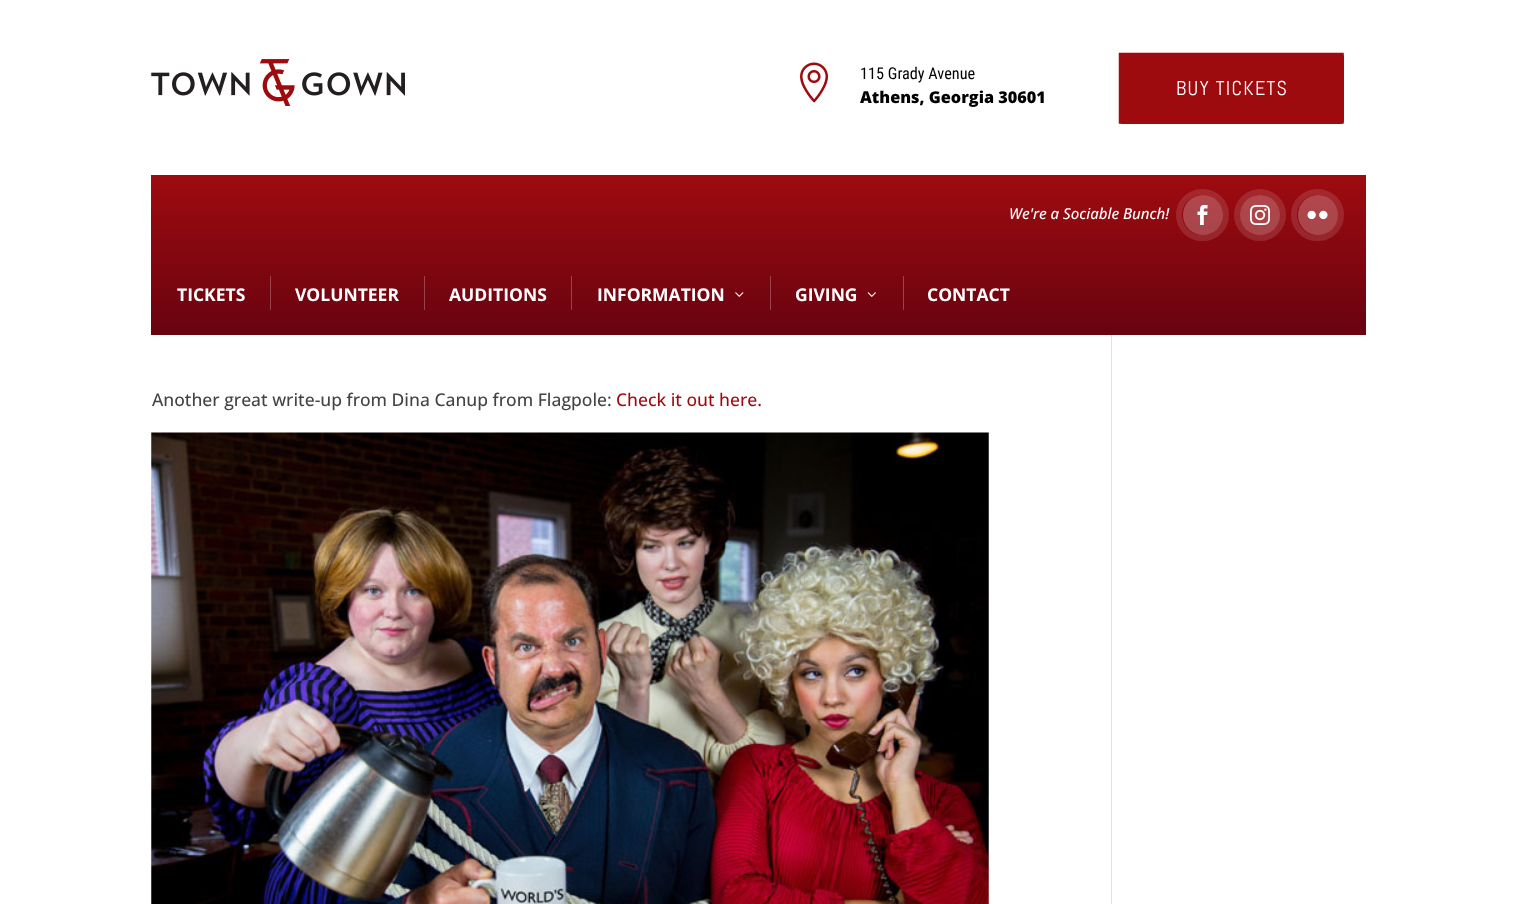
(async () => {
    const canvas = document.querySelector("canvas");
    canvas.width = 1517;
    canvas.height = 904;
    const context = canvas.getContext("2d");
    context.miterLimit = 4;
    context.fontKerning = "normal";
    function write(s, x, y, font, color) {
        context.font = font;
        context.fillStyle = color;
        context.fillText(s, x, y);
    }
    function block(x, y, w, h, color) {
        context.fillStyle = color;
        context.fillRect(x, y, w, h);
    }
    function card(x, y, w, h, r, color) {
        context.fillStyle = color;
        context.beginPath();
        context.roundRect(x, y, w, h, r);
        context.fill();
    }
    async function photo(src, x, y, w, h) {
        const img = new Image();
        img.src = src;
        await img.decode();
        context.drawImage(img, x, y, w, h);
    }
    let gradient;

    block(0, 0, 1517, 904, "rgb(255, 255, 255)");
    await photo("media/1.png", 151, 59, 254, 47);
    await photo("media/2.png", 800, 62, 29, 41);
    write("115 Grady Avenue", 860, 79, "16.25px Roboto Condensed", "rgb(0, 0, 0)");
    write("Athens, Georgia 30601", 860, 103, "800 16.25px Open Sans", "rgb(0, 0, 0)");
    card(1119, 53, 225, 71, 4, "rgb(158, 11, 15)");
    context.beginPath();
    context.moveTo(1125, 59);
    context.lineTo(1337.5, 59);
    context.lineTo(1337.5, 117.5);
    context.lineTo(1125, 117.5);
    context.closePath();
    context.strokeStyle = "rgb(158, 11, 15)";
    context.lineWidth = 12.5;
    context.stroke();
    context.letterSpacing = "1.25px";
    write("BUY TICKETS", 1176, 95, "20px Abel", "rgb(255, 255, 255)");
    gradient = context.createLinearGradient(759, 175, 759, 335);
    gradient.addColorStop(0, "rgb(158, 11, 15)");
    gradient.addColorStop(1, "rgb(104, 3, 16)");
    context.fillStyle = gradient;
    context.fillRect(151, 175, 1215, 160);
    gradient = context.createLinearGradient(759, 175, 759, 335);
    gradient.addColorStop(0, "rgb(182, 72, 75)");
    gradient.addColorStop(1, "rgb(142, 66, 76)");
    context.fillStyle = gradient;
    context.fillRect(903, 276, 1, 34);
    context.fillRect(770, 276, 1, 34);
    context.fillRect(571, 276, 1, 34);
    context.letterSpacing = "0px";
    write("We're a Sociable Bunch!", 1009, 219, "italic 500 15px Open Sans", "rgb(255, 255, 255)");
    context.beginPath();
    context.roundRect(1179, 192, 47, 46, 23);
    context.strokeStyle = "rgba(255, 255, 255, 0.12)";
    context.lineWidth = 6;
    context.stroke();
    context.fillStyle = "rgba(255, 255, 255, 0.25)";
    context.beginPath();
    context.arc(1203, 215, 20, 0, Math.PI * 2);
    context.fill();
    await photo("media/3.png", 1197, 205, 11, 20);
    context.beginPath();
    context.arc(1260, 215, 23, 0, Math.PI * 2);
    context.stroke();
    context.beginPath();
    context.arc(1260, 215, 20, 0, Math.PI * 2);
    context.fill();
    await photo("media/4.png", 1250, 205, 20, 20);
    context.beginPath();
    context.roundRect(1294, 192, 47, 46, 23);
    context.stroke();
    context.beginPath();
    context.arc(1318, 215, 20, 0, Math.PI * 2);
    context.fill();
    await photo("media/5.png", 1307, 210, 21, 10);
    write("TICKETS", 177, 301, "bold 17.5px Open Sans", "rgb(255, 255, 255)");
    block(270, 276, 1, 34, "rgba(255, 255, 255, 0.25)");
    write("VOLUNTEER", 295, 301, "bold 17.5px Open Sans", "rgb(255, 255, 255)");
    block(424, 276, 1, 34, "rgba(255, 255, 255, 0.25)");
    write("AUDITIONS", 449, 301, "bold 17.5px Open Sans", "rgb(255, 255, 255)");
    write("INFORMATION", 597, 301, "bold 17.5px Open Sans", "rgb(255, 255, 255)");
    await photo("media/6.png", 735, 292, 9, 5);
    write("GIVING", 795, 301, "bold 17.5px Open Sans", "rgb(255, 255, 255)");
    await photo("media/7.png", 867, 292, 9, 5);
    write("CONTACT", 927, 301, "bold 17.5px Open Sans", "rgb(255, 255, 255)");
    write("Another great write-up from Dina Canup from Flagpole:", 152, 406, "500 17.5px Open Sans", "rgb(68, 68, 68)");
    write("Check it out here.", 616, 406, "500 17.5px Open Sans", "rgb(158, 10, 15)");
    await photo("media/8.png", 151, 432, 838, 472);
    block(1111, 335, 1, 569, "rgb(226, 226, 226)");
})();
